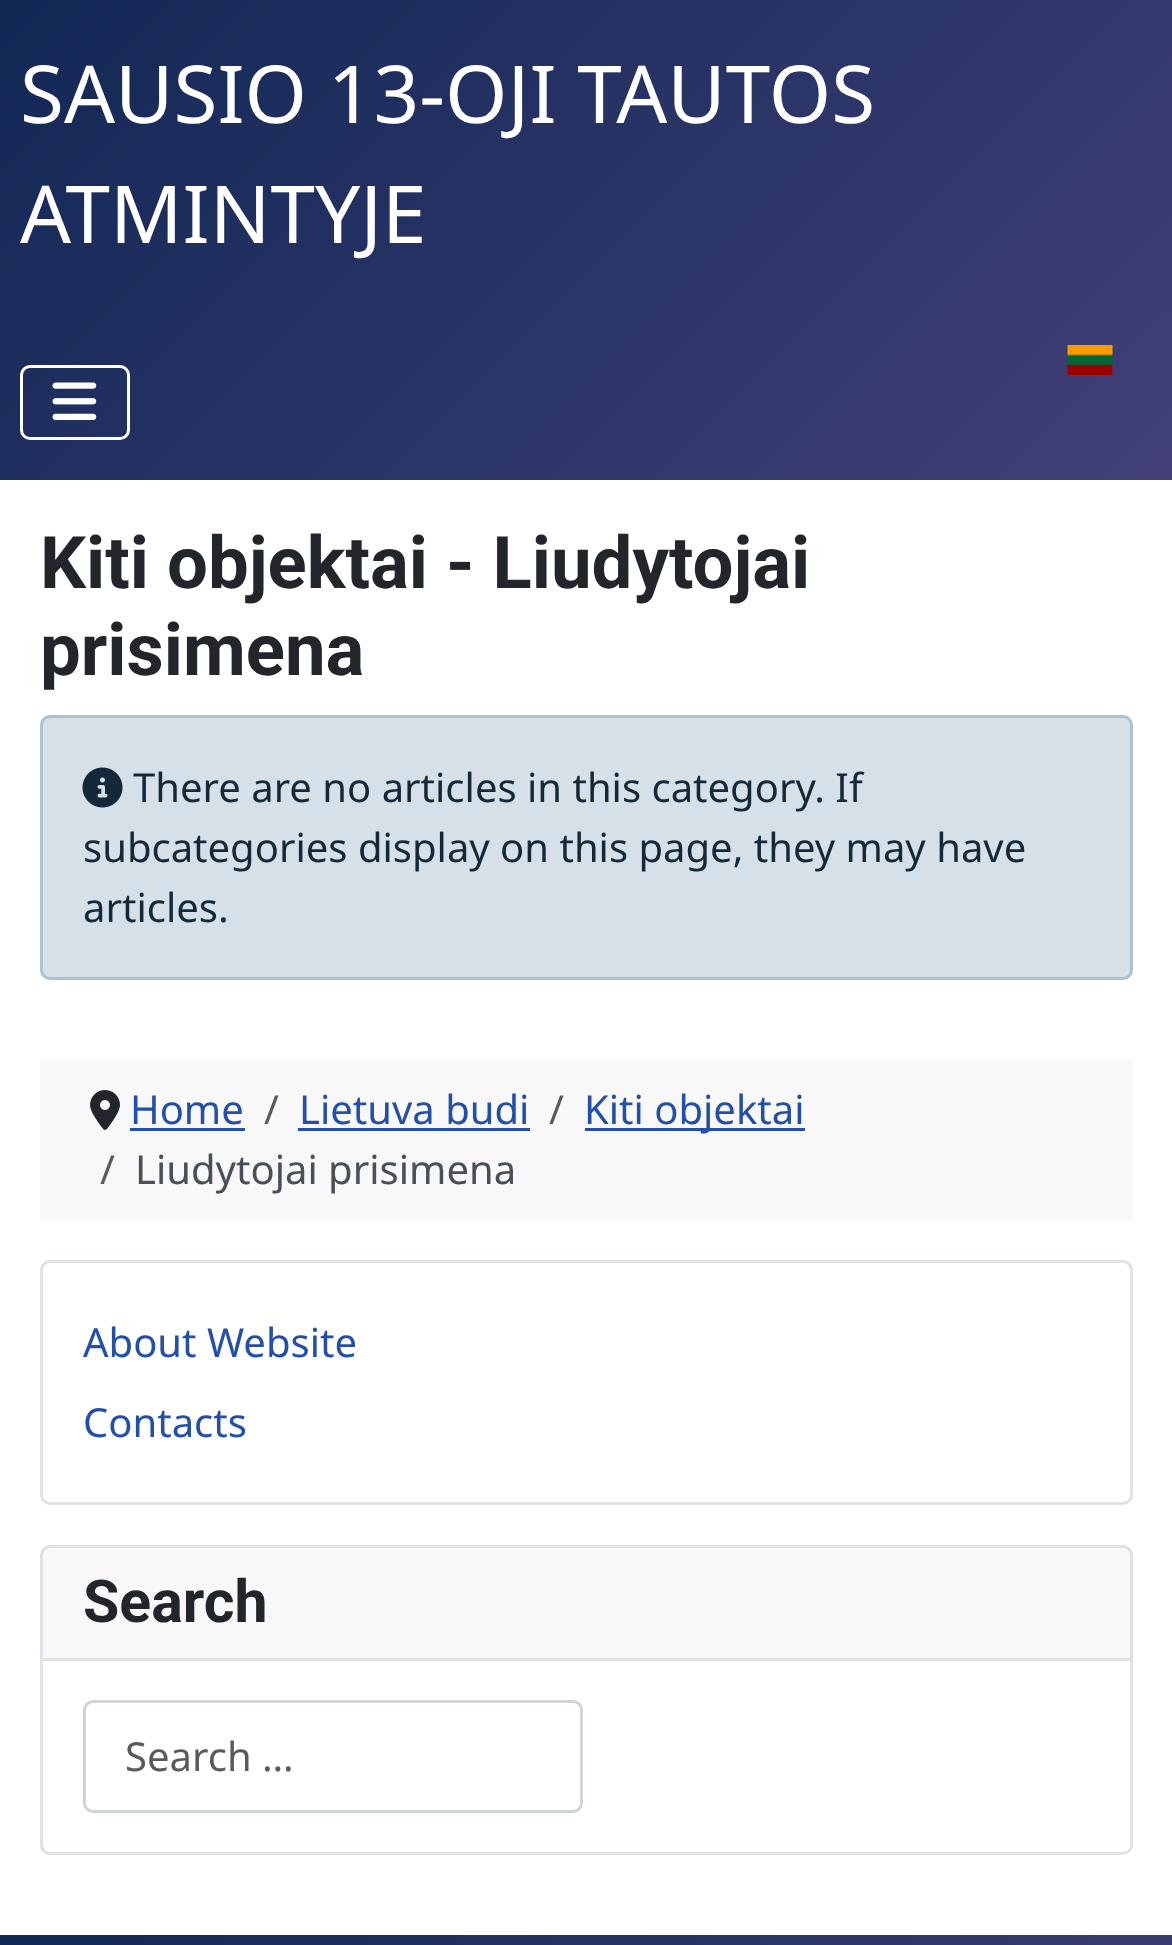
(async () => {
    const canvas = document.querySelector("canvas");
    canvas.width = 1172;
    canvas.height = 1945;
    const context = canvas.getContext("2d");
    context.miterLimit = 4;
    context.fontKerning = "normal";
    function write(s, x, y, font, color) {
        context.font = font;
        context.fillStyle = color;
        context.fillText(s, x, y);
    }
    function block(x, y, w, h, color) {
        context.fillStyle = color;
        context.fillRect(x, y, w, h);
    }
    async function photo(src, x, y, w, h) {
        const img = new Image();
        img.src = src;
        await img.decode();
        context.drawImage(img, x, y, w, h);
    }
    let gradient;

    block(0, 0, 1172, 1945, "rgb(255, 255, 255)");
    gradient = context.createLinearGradient(173, -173, 999, 653);
    gradient.addColorStop(0, "rgb(17, 40, 85)");
    gradient.addColorStop(1, "rgb(66, 64, 119)");
    context.fillStyle = gradient;
    context.fillRect(0, 0, 1172, 480);
    write("SAUSIO 13-OJI TAUTOS", 20, 123, "80px Noto Sans", "rgb(255, 255, 255)");
    write("ATMINTYJE", 20, 243, "80px Noto Sans", "rgb(255, 255, 255)");
    await photo("media/1.png", 1067, 345, 46, 30);
    context.beginPath();
    context.roundRect(21.5, 366.5, 107, 72, 8.5);
    context.strokeStyle = "rgb(255, 255, 255)";
    context.lineWidth = 3;
    context.stroke();
    await photo("media/2.png", 52, 382, 45, 38);
    write("Kiti objektai - Liudytojai", 40, 588, "bold 72.5px Roboto", "rgb(34, 38, 42)");
    write("prisimena", 40, 675, "bold 72.5px Roboto", "rgb(34, 38, 42)");
    context.fillStyle = "rgb(214, 224, 232)";
    context.beginPath();
    context.roundRect(41.5, 716.5, 1090, 262, 8.5);
    context.fill();
    context.strokeStyle = "rgb(172, 193, 209)";
    context.stroke();
    await photo("media/3.png", 82, 767, 41, 41);
    write("There are no articles in this category. If", 133, 802, "40px Noto Sans", "rgb(19, 40, 56)");
    write("subcategories display on this page, they may have", 83, 862, "40px Noto Sans", "rgb(19, 40, 56)");
    write("articles.", 83, 922, "40px Noto Sans", "rgb(19, 40, 56)");
    block(40, 1060, 1093, 160, "rgb(248, 248, 248)");
    await photo("media/4.png", 90, 1090, 30, 40);
    write("Home", 130, 1124, "40px Noto Sans", "rgb(34, 79, 170)");
    block(130, 1128, 115, 3, "rgb(34, 79, 170)");
    write("/", 264, 1124, "40px Noto Sans", "rgb(88, 91, 94)");
    write("Lietuva budi", 299, 1124, "40px Noto Sans", "rgb(34, 79, 170)");
    block(298, 1128, 232, 3, "rgb(34, 79, 170)");
    write("/", 549, 1124, "40px Noto Sans", "rgb(88, 91, 94)");
    block(585, 1128, 220, 3, "rgb(34, 79, 170)");
    write("Kiti objektai", 584, 1124, "40px Noto Sans", "rgb(34, 79, 170)");
    write("/", 100, 1184, "40px Noto Sans", "rgb(88, 91, 94)");
    write("Liudytojai prisimena", 135, 1184, "40px Noto Sans", "rgb(72, 79, 86)");
    context.beginPath();
    context.roundRect(41.5, 1261.5, 1090, 242, 8.5);
    context.strokeStyle = "rgb(223, 227, 231)";
    context.stroke();
    write("About Website", 83, 1357, "40px Noto Sans", "rgb(34, 79, 170)");
    write("Contacts", 83, 1437, "40px Noto Sans", "rgb(34, 79, 170)");
    context.beginPath();
    context.roundRect(41.5, 1546.5, 1090, 307, 8.5);
    context.stroke();
    block(43, 1548, 1087, 110, "rgba(34, 38, 42, 0.03)");
    block(43, 1658, 1087, 3, "rgb(223, 227, 231)");
    write("Search", 83, 1622, "bold 59px Roboto", "rgb(34, 38, 42)");
    context.beginPath();
    context.roundRect(84.5, 1701.5, 497, 110, 8.5);
    context.strokeStyle = "rgb(206, 212, 218)";
    context.stroke();
    write("Search …", 125, 1771, "40px Noto Sans", "rgb(88, 91, 94)");
    gradient = context.createLinearGradient(218, 1717, 954, 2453);
    gradient.addColorStop(0, "rgb(17, 40, 85)");
    gradient.addColorStop(1, "rgb(66, 64, 119)");
    context.fillStyle = gradient;
    context.fillRect(0, 1935, 1172, 10);
})();
